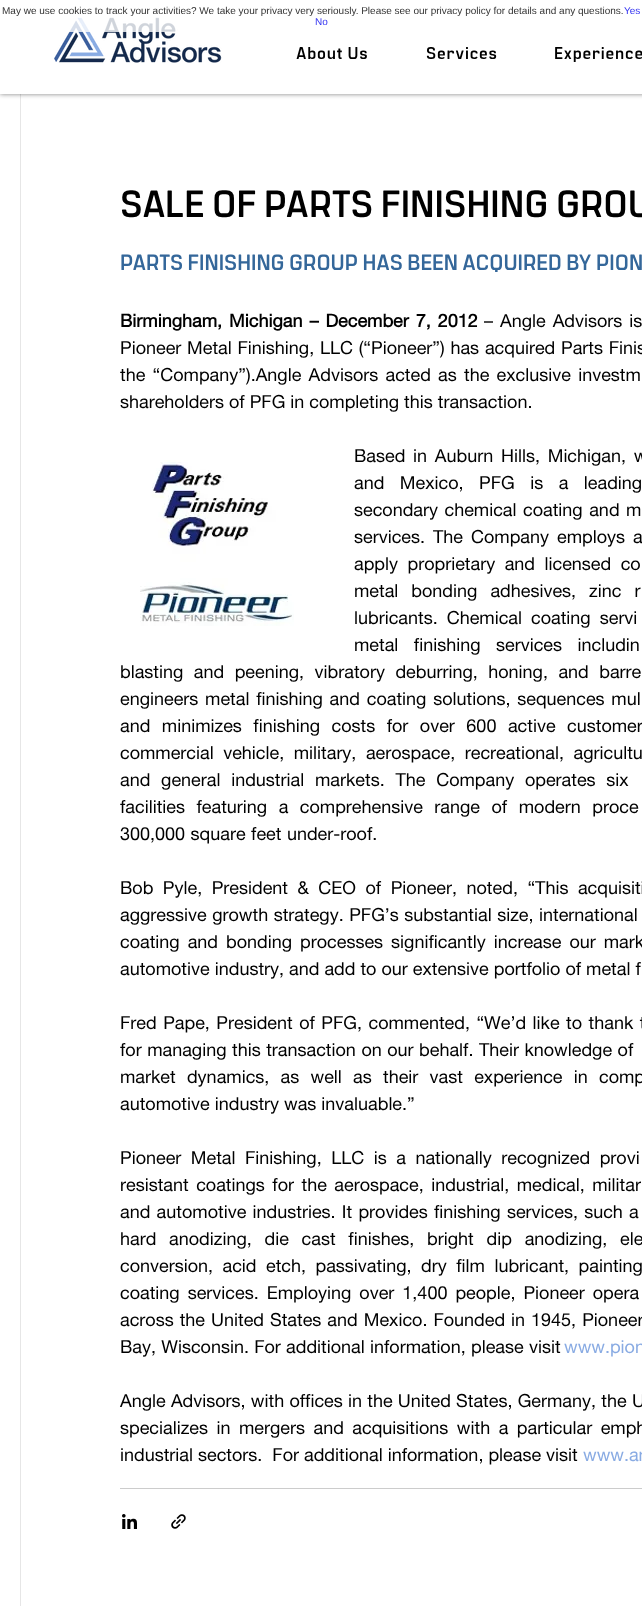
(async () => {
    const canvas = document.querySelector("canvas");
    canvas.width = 642;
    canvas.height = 1606;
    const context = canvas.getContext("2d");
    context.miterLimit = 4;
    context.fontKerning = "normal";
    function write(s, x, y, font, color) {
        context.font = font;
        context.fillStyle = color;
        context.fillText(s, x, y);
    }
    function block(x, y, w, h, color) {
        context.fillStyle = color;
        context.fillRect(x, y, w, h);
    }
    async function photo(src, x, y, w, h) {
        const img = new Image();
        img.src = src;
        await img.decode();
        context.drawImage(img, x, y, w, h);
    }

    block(0, 0, 642, 1606, "rgb(255, 255, 255)");
    context.strokeStyle = "rgb(230, 230, 230)";
    context.strokeRect(20.5, 91.5, 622, 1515);
    context.fillStyle = "rgba(0, 0, 0, 0.5)";
    context.filter = "blur(2.5px)";
    context.beginPath();
    context.rect(0, 0, 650, 94);
    context.fill();
    context.filter = "none";
    block(0, 0, 642, 94, "rgb(255, 255, 255)");
    await photo("media/1.png", 54, 17, 168, 46);
    block(67, 17, 110, 15, "rgba(255, 255, 255, 0.8)");
    write("May we use cookies to track your activities? We take your privacy very seriously. Please see our privacy policy for details and any questions.", 2, 14, "10px Liberation Sans", "rgb(51, 51, 51)");
    write("Yes", 624, 14, "10px Liberation Sans", "rgb(51, 51, 241)");
    write("No", 315, 25, "10px Liberation Sans", "rgb(51, 51, 241)");
    context.letterSpacing = "0.75px";
    write("About Us", 296, 59, "bold 17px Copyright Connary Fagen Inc", "rgb(0, 0, 0)");
    write("Services", 426, 59, "bold 17px Copyright Connary Fagen Inc", "rgb(0, 0, 0)");
    write("Experience", 554, 59, "bold 17px Copyright Connary Fagen Inc", "rgb(0, 0, 0)");
    context.letterSpacing = "0px";
    write("SALE OF PARTS FINISHING GROU", 120, 217, "bold 38px Copyright Connary Fagen Inc", "rgb(0, 0, 0)");
    write("PARTS FINISHING GROUP HAS BEEN ACQUIRED BY PION", 120, 270, "bold 22px Copyright Connary Fagen Inc", "rgb(52, 103, 154)");
    context.wordSpacing = "2px";
    write("Birmingham, Michigan – December 7, 2012", 120, 327, "bold 18px Helvetica Neue", "rgb(0, 0, 0)");
    write("– Angle Advisors is", 484, 327, "18px Helvetica Neue", "rgb(0, 0, 0)");
    context.wordSpacing = "0.75px";
    write("Pioneer Metal Finishing, LLC (“Pioneer”) has acquired Parts Finis", 120, 354, "18px Helvetica Neue", "rgb(0, 0, 0)");
    context.wordSpacing = "2.25px";
    write("the “Company”).Angle Advisors acted as the exclusive investm", 120, 381, "18px Helvetica Neue", "rgb(0, 0, 0)");
    context.wordSpacing = "0px";
    write("shareholders of PFG in completing this transaction.", 120, 408, "18px Helvetica Neue", "rgb(0, 0, 0)");
    context.wordSpacing = "2.75px";
    write("Based in Auburn Hills, Michigan, w", 354, 462, "18px Helvetica Neue", "rgb(0, 0, 0)");
    context.wordSpacing = "10.5px";
    write("and Mexico, PFG is a leading", 354, 489, "18px Helvetica Neue", "rgb(0, 0, 0)");
    context.wordSpacing = "1.5px";
    write("secondary chemical coating and m", 354, 516, "18px Helvetica Neue", "rgb(0, 0, 0)");
    context.wordSpacing = "3px";
    write("services. The Company employs a", 354, 543, "18px Helvetica Neue", "rgb(0, 0, 0)");
    context.wordSpacing = "4.5px";
    write("apply proprietary and licensed co", 354, 570, "18px Helvetica Neue", "rgb(0, 0, 0)");
    context.wordSpacing = "8px";
    write("metal bonding adhesives, zinc r", 354, 597, "18px Helvetica Neue", "rgb(0, 0, 0)");
    context.wordSpacing = "4px";
    write("lubricants. Chemical coating servi", 354, 624, "18px Helvetica Neue", "rgb(0, 0, 0)");
    context.wordSpacing = "10.5px";
    write("metal finishing services includin", 354, 651, "18px Helvetica Neue", "rgb(0, 0, 0)");
    context.wordSpacing = "5.5px";
    write("blasting and peening, vibratory deburring, honing, and barre", 120, 678, "18px Helvetica Neue", "rgb(0, 0, 0)");
    context.wordSpacing = "1.75px";
    write("engineers metal finishing and coating solutions, sequences mul", 120, 705, "18px Helvetica Neue", "rgb(0, 0, 0)");
    context.wordSpacing = "6.5px";
    write("and minimizes finishing costs for over 600 active customer", 120, 732, "18px Helvetica Neue", "rgb(0, 0, 0)");
    context.wordSpacing = "4.5px";
    write("commercial vehicle, military, aerospace, recreational, agricultu", 120, 759, "18px Helvetica Neue", "rgb(0, 0, 0)");
    context.wordSpacing = "5.75px";
    write("and general industrial markets. The Company operates six", 120, 786, "18px Helvetica Neue", "rgb(0, 0, 0)");
    context.wordSpacing = "6.5px";
    write("facilities featuring a comprehensive range of modern proce", 120, 813, "18px Helvetica Neue", "rgb(0, 0, 0)");
    context.wordSpacing = "0.5px";
    write("300,000 square feet under-roof.", 120, 840, "18px Helvetica Neue", "rgb(0, 0, 0)");
    await photo("media/2.png", 140, 460, 154, 166);
    context.wordSpacing = "4.5px";
    write("Bob Pyle, President & CEO of Pioneer, noted, “This acquisiti", 120, 894, "18px Helvetica Neue", "rgb(0, 0, 0)");
    context.wordSpacing = "0.5px";
    write("aggressive growth strategy. PFG’s substantial size, international", 120, 921, "18px Helvetica Neue", "rgb(0, 0, 0)");
    context.wordSpacing = "3px";
    write("coating and bonding processes significantly increase our mark", 120, 948, "18px Helvetica Neue", "rgb(0, 0, 0)");
    context.wordSpacing = "0px";
    write("automotive industry, and add to our extensive portfolio of metal f", 120, 975, "18px Helvetica Neue", "rgb(0, 0, 0)");
    context.wordSpacing = "1.5px";
    write("Fred Pape, President of PFG, commented, “We’d like to thank t", 120, 1029, "18px Helvetica Neue", "rgb(0, 0, 0)");
    context.wordSpacing = "0.5px";
    write("for managing this transaction on our behalf. Their knowledge of", 120, 1056, "18px Helvetica Neue", "rgb(0, 0, 0)");
    context.wordSpacing = "6.25px";
    write("market dynamics, as well as their vast experience in comp", 120, 1083, "18px Helvetica Neue", "rgb(0, 0, 0)");
    context.wordSpacing = "0px";
    write("automotive industry was invaluable.”", 120, 1110, "18px Helvetica Neue", "rgb(0, 0, 0)");
    context.wordSpacing = "4.5px";
    write("Pioneer Metal Finishing, LLC is a nationally recognized provi", 120, 1164, "18px Helvetica Neue", "rgb(0, 0, 0)");
    context.wordSpacing = "2.5px";
    write("resistant coatings for the aerospace, industrial, medical, militar", 120, 1191, "18px Helvetica Neue", "rgb(0, 0, 0)");
    context.wordSpacing = "1.25px";
    write("and automotive industries. It provides finishing services, such a", 120, 1218, "18px Helvetica Neue", "rgb(0, 0, 0)");
    context.wordSpacing = "7.75px";
    write("hard anodizing, die cast finishes, bright dip anodizing, ele", 120, 1245, "18px Helvetica Neue", "rgb(0, 0, 0)");
    context.wordSpacing = "4.5px";
    write("conversion, acid etch, passivating, dry film lubricant, painting", 120, 1272, "18px Helvetica Neue", "rgb(0, 0, 0)");
    context.wordSpacing = "3px";
    write("coating services. Employing over 1,400 people, Pioneer opera", 120, 1299, "18px Helvetica Neue", "rgb(0, 0, 0)");
    context.wordSpacing = "1px";
    write("across the United States and Mexico. Founded in 1945, Pioneer", 120, 1326, "18px Helvetica Neue", "rgb(0, 0, 0)");
    context.wordSpacing = "0.25px";
    write("Bay, Wisconsin. For additional information, please visit", 120, 1353, "18px Helvetica Neue", "rgb(0, 0, 0)");
    context.wordSpacing = "0px";
    write("www.pion", 564, 1353, "18px Helvetica Neue", "rgb(137, 171, 227)");
    context.wordSpacing = "0.25px";
    write("Angle Advisors, with offices in the United States, Germany, the U", 120, 1407, "18px Helvetica Neue", "rgb(0, 0, 0)");
    context.wordSpacing = "3.5px";
    write("specializes in mergers and acquisitions with a particular emph", 120, 1434, "18px Helvetica Neue", "rgb(0, 0, 0)");
    context.wordSpacing = "0px";
    write("industrial sectors.  For additional information, please visit", 120, 1461, "18px Helvetica Neue", "rgb(0, 0, 0)");
    write("www.an", 583, 1461, "18px Helvetica Neue", "rgb(137, 171, 227)");
    block(120, 1488, 522, 1, "rgb(204, 204, 204)");
    await photo("media/3.png", 122, 1514, 15, 15);
    await photo("media/4.png", 171, 1514, 15, 15);
})();
